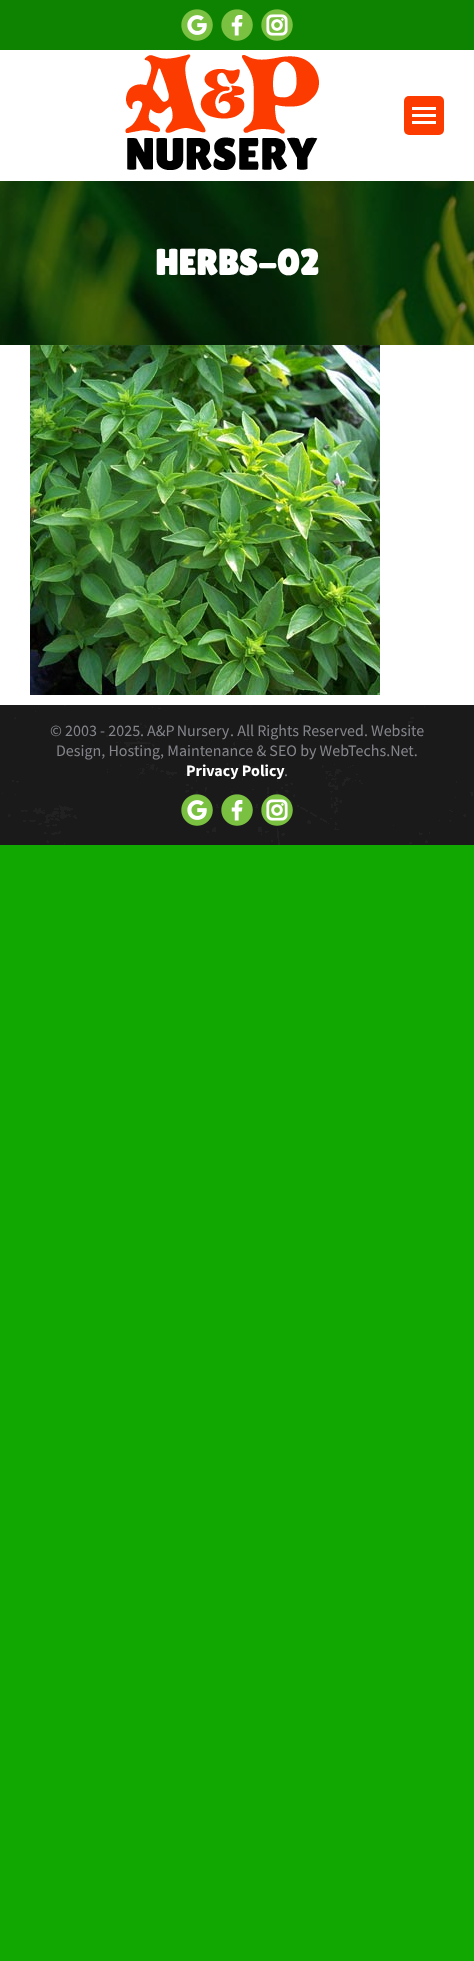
(async () => {
    const canvas = document.querySelector("canvas");
    canvas.width = 474;
    canvas.height = 1961;
    const context = canvas.getContext("2d");
    context.miterLimit = 4;
    context.fontKerning = "normal";
    function write(s, x, y, font, color) {
        context.font = font;
        context.fillStyle = color;
        context.fillText(s, x, y);
    }
    function block(x, y, w, h, color) {
        context.fillStyle = color;
        context.fillRect(x, y, w, h);
    }
    function card(x, y, w, h, r, color) {
        context.fillStyle = color;
        context.beginPath();
        context.roundRect(x, y, w, h, r);
        context.fill();
    }
    async function photo(src, x, y, w, h) {
        const img = new Image();
        img.src = src;
        await img.decode();
        context.drawImage(img, x, y, w, h);
    }

    block(0, 0, 474, 1961, "rgb(17, 169, 1)");
    block(0, 50, 474, 655, "rgb(255, 255, 255)");
    block(0, 0, 474, 50, "rgb(14, 130, 1)");
    await photo("media/1.png", 181, 9, 32, 32);
    await photo("media/2.png", 221, 9, 32, 32);
    await photo("media/3.png", 261, 9, 32, 32);
    await photo("media/4.png", 125, 54, 194, 116);
    card(404, 96, 40, 39, 5, "rgb(252, 59, 0)");
    block(412, 107, 24, 3, "rgb(255, 255, 255)");
    block(412, 114, 24, 3, "rgb(255, 255, 255)");
    block(412, 121, 24, 3, "rgb(255, 255, 255)");
    await photo("media/5.png", 0, 181, 474, 164);
    write("HERBS-02", 155, 275, "bold 36px Lilita One", "rgb(255, 255, 255)");
    await photo("media/6.png", 30, 345, 350, 350);
    block(0, 705, 474, 140, "rgb(26, 26, 26)");
    await photo("media/7.png", 2, 705, 471, 140);
    write("© 2003 - 2025.", 50, 736, "16px Source Sans Pro", "rgb(133, 134, 140)");
    context.wordSpacing = "-1px";
    write("A&P Nursery", 147, 736, "16px Source Sans Pro", "rgb(133, 134, 140)");
    context.wordSpacing = "0px";
    write(". All Rights Reserved. Website", 230, 736, "16px Source Sans Pro", "rgb(133, 134, 140)");
    write("Design, Hosting, Maintenance & SEO by WebTechs.Net.", 56, 756, "16px Source Sans Pro", "rgb(133, 134, 140)");
    write("Privacy Policy", 186, 776, "bold 16px Source Sans Pro", "rgb(255, 255, 255)");
    write(".", 284, 776, "16px Source Sans Pro", "rgb(133, 134, 140)");
    await photo("media/8.png", 181, 794, 32, 32);
    await photo("media/9.png", 221, 794, 32, 32);
    await photo("media/10.png", 261, 794, 32, 32);
})();
